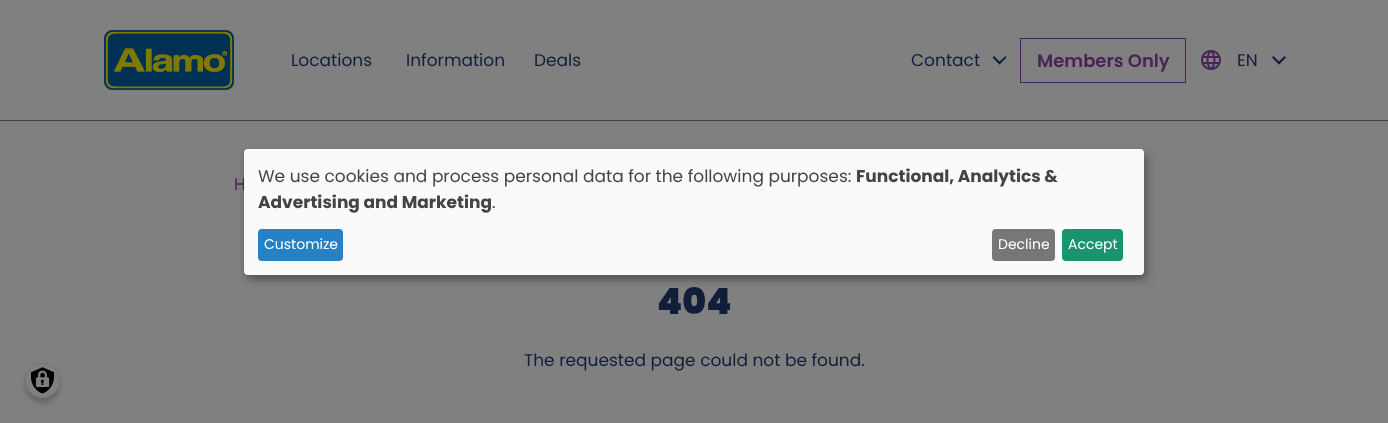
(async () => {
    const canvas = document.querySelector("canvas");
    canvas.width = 1388;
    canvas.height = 423;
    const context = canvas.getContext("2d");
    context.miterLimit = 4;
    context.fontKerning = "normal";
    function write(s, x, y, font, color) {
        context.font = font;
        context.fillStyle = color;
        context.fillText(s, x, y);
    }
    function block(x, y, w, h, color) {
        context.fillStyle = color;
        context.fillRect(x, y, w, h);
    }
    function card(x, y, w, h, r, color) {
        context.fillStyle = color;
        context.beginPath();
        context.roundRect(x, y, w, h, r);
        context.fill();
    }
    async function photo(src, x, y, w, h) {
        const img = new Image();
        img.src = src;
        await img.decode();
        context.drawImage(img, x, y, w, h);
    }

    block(0, 0, 1388, 423, "rgb(128, 128, 128)");
    await photo("media/1.png", 104, 30, 130, 60);
    write("Locations", 291, 66, "17px Poppins", "rgb(17, 30, 58)");
    write("Information", 406, 66, "17px Poppins", "rgb(17, 30, 58)");
    write("Deals", 534, 66, "17px Poppins", "rgb(17, 30, 58)");
    write("Contact", 911, 66, "17px Poppins", "rgb(17, 30, 58)");
    context.beginPath();
    context.moveTo(1005.5, 56);
    context.lineTo(1006.5, 57.5);
    context.lineTo(999.5, 64.5);
    context.lineTo(998, 63);
    context.closePath();
    context.fill();
    context.beginPath();
    context.moveTo(994, 56);
    context.lineTo(1001, 63);
    context.lineTo(999.5, 64.5);
    context.lineTo(992.5, 57.5);
    context.closePath();
    context.fill();
    context.strokeStyle = "rgb(73, 35, 88)";
    context.strokeRect(1020.5, 38.5, 165, 44);
    write("Members Only", 1037, 67, "600 18px Poppins", "rgb(73, 35, 88)");
    await photo("media/2.png", 1201, 50, 20, 20);
    write("EN", 1237, 66, "17px Poppins", "rgb(17, 30, 58)");
    context.beginPath();
    context.moveTo(1284.5, 56);
    context.lineTo(1286, 57.5);
    context.lineTo(1279, 64.5);
    context.lineTo(1277.5, 63);
    context.closePath();
    context.fill();
    context.beginPath();
    context.moveTo(1273.5, 56);
    context.lineTo(1280.5, 63);
    context.lineTo(1279, 64.5);
    context.lineTo(1272, 57.5);
    context.closePath();
    context.fill();
    block(0, 120, 1388, 1, "rgb(66, 68, 70)");
    write("H", 234, 190, "17px Poppins", "rgb(73, 35, 88)");
    write("404", 657, 314, "900 36px Poppins", "rgb(17, 30, 58)");
    write("The requested page could not be found.", 524, 366, "17px Poppins", "rgb(17, 30, 58)");
    context.fillStyle = "rgba(0, 0, 0, 0.19)";
    context.filter = "blur(5px)";
    context.beginPath();
    context.roundRect(249, 154, 900, 126, 4);
    context.fill();
    context.filter = "none";
    context.fillStyle = "rgba(0, 0, 0, 0.2)";
    context.filter = "blur(3px)";
    context.beginPath();
    context.roundRect(244, 153, 900, 126, 4);
    context.fill();
    context.filter = "none";
    card(244, 149, 900, 126, 4, "rgb(250, 250, 250)");
    write("We use cookies and process personal data for the following purposes:", 258, 182, "17px Poppins", "rgb(68, 68, 68)");
    write("Functional, Analytics &", 856, 182, "bold 17px Poppins", "rgb(68, 68, 68)");
    write("Advertising and Marketing", 258, 208, "bold 17px Poppins", "rgb(68, 68, 68)");
    write(".", 492, 208, "17px Poppins", "rgb(68, 68, 68)");
    card(258, 229, 85, 32, 4, "rgb(37, 129, 196)");
    write("Customize", 264, 249, "14px Poppins", "rgb(255, 255, 255)");
    card(992, 229, 63, 32, 4, "rgb(119, 119, 119)");
    write("Decline", 998, 249, "14px Poppins", "rgb(255, 255, 255)");
    card(1062, 229, 61, 32, 4, "rgb(26, 147, 111)");
    write("Accept", 1068, 249, "14px Poppins", "rgb(255, 255, 255)");
    context.fillStyle = "rgba(0, 0, 0, 0.2)";
    context.filter = "blur(2.5px)";
    context.beginPath();
    context.roundRect(25, 368, 35, 35, 17.5);
    context.fill();
    context.filter = "none";
    context.fillStyle = "rgb(128, 128, 128)";
    context.beginPath();
    context.arc(42.5, 380.5, 17.5, 0, Math.PI * 2);
    context.fill();
    await photo("media/3.png", 30, 367, 25, 27);
    context.beginPath();
    context.arc(42.5, 380.5, 17, 0, Math.PI * 2);
    context.strokeStyle = "rgb(117, 117, 117)";
    context.stroke();
})();
